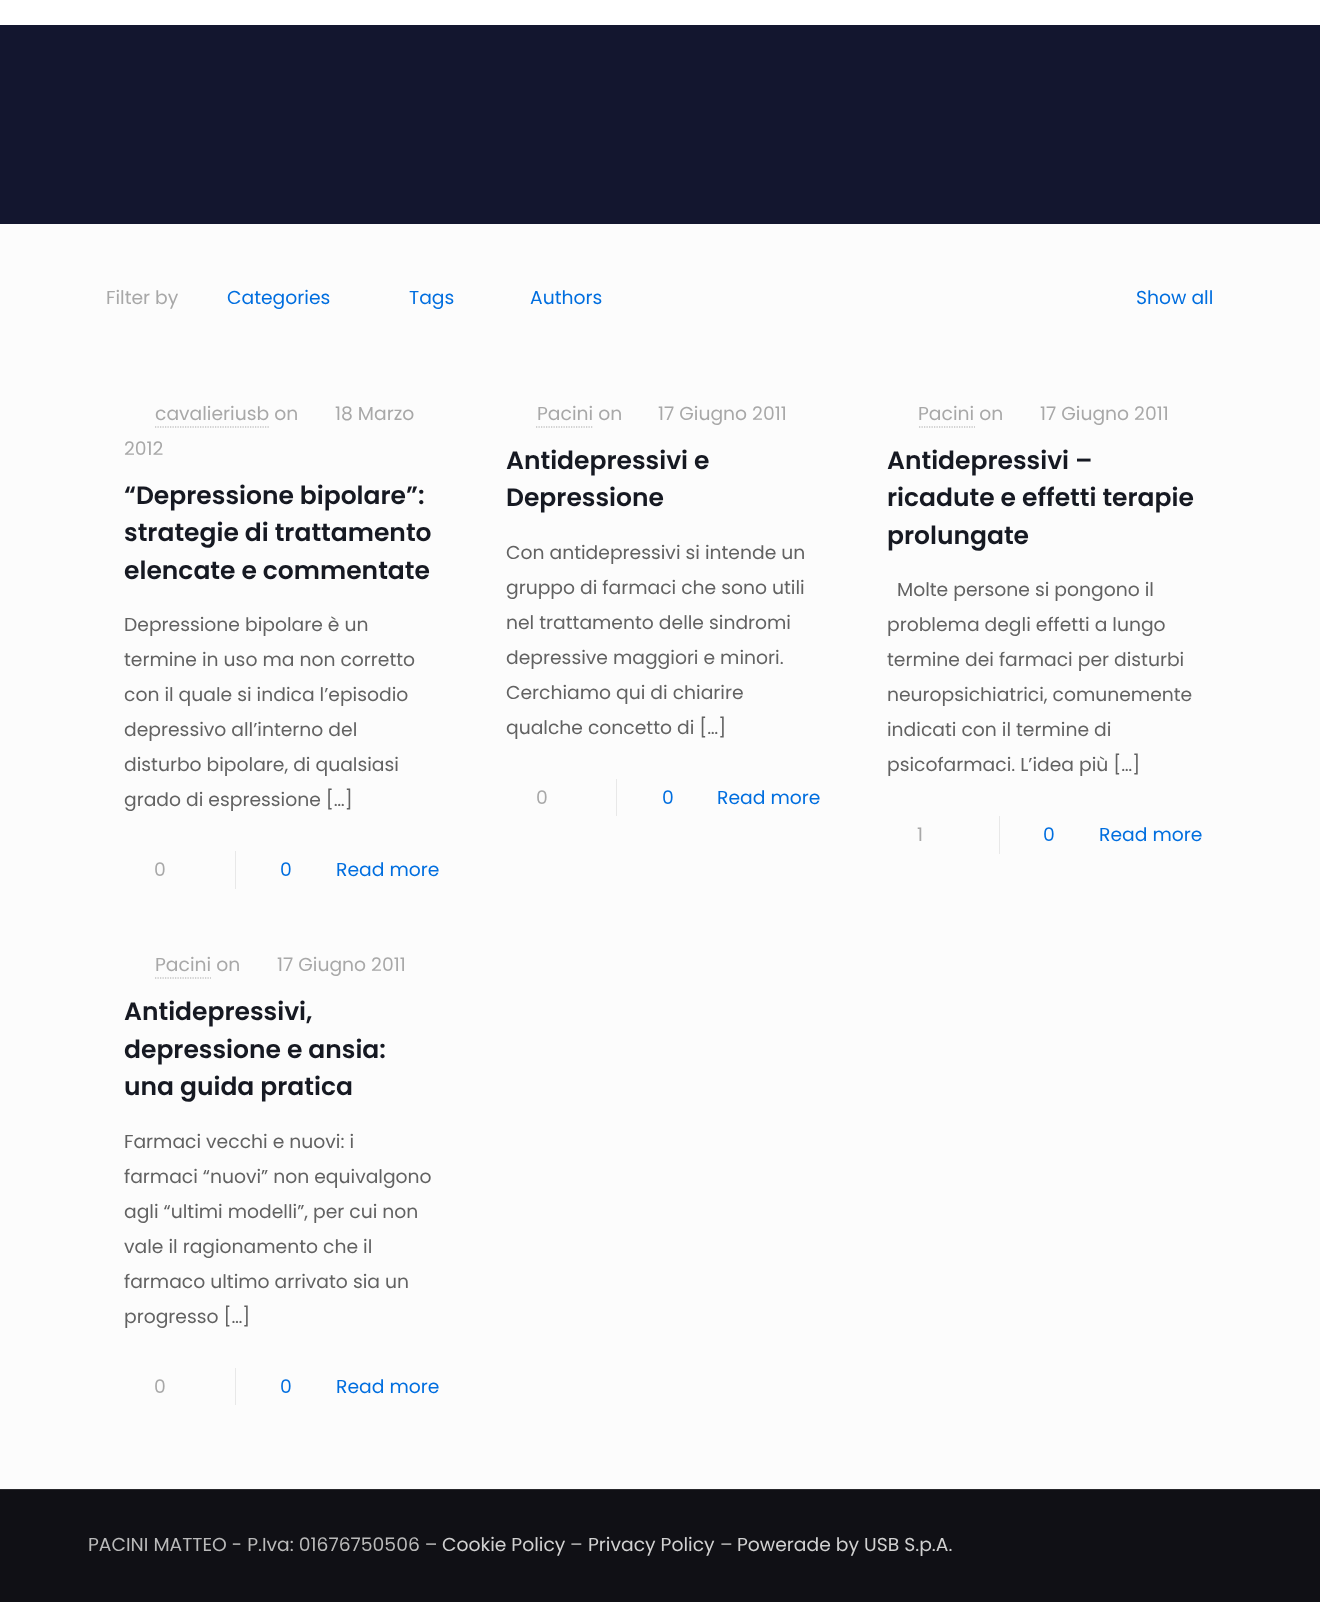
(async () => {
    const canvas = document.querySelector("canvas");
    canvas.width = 1320;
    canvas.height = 1602;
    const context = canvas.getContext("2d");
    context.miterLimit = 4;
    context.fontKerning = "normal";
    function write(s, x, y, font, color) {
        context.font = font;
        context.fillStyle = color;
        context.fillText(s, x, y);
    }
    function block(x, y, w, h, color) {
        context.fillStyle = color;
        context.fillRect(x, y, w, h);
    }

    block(0, 0, 1320, 1602, "rgb(252, 252, 252)");
    block(0, 25, 1320, 199, "rgb(19, 22, 47)");
    block(0, 0, 1320, 25, "rgb(255, 255, 255)");
    write("Filter by", 106, 304, "18.75px Poppins", "rgb(168, 168, 168)");
    write("Categories", 227, 304, "18.75px Poppins", "rgb(0, 110, 223)");
    write("Tags", 409, 304, "18.75px Poppins", "rgb(0, 110, 223)");
    write("Authors", 530, 304, "18.75px Poppins", "rgb(0, 110, 223)");
    write("Show all", 1136, 304, "18.75px Poppins", "rgb(0, 110, 223)");
    write("cavalieriusb on", 155, 420, "18.75px Poppins", "rgb(168, 168, 168)");
    context.beginPath();
    context.moveTo(155, 427);
    context.lineTo(270, 427);
    context.strokeStyle = "rgb(168, 168, 168)";
    context.lineWidth = 1.2;
    context.setLineDash([1.25, 1.25]);
    context.stroke();
    write("18 Marzo", 335, 420, "18.75px Poppins", "rgb(168, 168, 168)");
    write("2012", 124, 455, "18.75px Poppins", "rgb(168, 168, 168)");
    write("“Depressione bipolare”:", 124, 504, "600 25px Poppins", "rgb(22, 25, 34)");
    write("strategie di trattamento", 124, 541, "600 25px Poppins", "rgb(22, 25, 34)");
    write("elencate e commentate", 124, 579, "600 25px Poppins", "rgb(22, 25, 34)");
    write("Depressione bipolare è un", 124, 631, "18.75px Poppins", "rgb(98, 98, 98)");
    write("termine in uso ma non corretto", 124, 666, "18.75px Poppins", "rgb(98, 98, 98)");
    write("con il quale si indica l’episodio", 124, 701, "18.75px Poppins", "rgb(98, 98, 98)");
    write("depressivo all’interno del", 124, 736, "18.75px Poppins", "rgb(98, 98, 98)");
    write("disturbo bipolare, di qualsiasi", 124, 771, "18.75px Poppins", "rgb(98, 98, 98)");
    write("grado di espressione […]", 124, 806, "18.75px Poppins", "rgb(98, 98, 98)");
    write("0", 154, 876, "18.75px Poppins", "rgb(168, 168, 168)");
    block(235, 851, 1, 38, "rgb(232, 232, 232)");
    write("0", 280, 876, "18.75px Poppins", "rgb(0, 110, 223)");
    write("Read more", 336, 876, "18.75px Poppins", "rgb(0, 110, 223)");
    write("Pacini on", 537, 420, "18.75px Poppins", "rgb(168, 168, 168)");
    context.beginPath();
    context.moveTo(536, 427);
    context.lineTo(592.5, 427);
    context.stroke();
    write("17 Giugno 2011", 658, 420, "18.75px Poppins", "rgb(168, 168, 168)");
    write("Antidepressivi e", 506, 469, "600 25px Poppins", "rgb(22, 25, 34)");
    write("Depressione", 506, 506, "600 25px Poppins", "rgb(22, 25, 34)");
    write("Con antidepressivi si intende un", 506, 559, "18.75px Poppins", "rgb(98, 98, 98)");
    write("gruppo di farmaci che sono utili", 506, 594, "18.75px Poppins", "rgb(98, 98, 98)");
    write("nel trattamento delle sindromi", 506, 629, "18.75px Poppins", "rgb(98, 98, 98)");
    write("depressive maggiori e minori.", 506, 664, "18.75px Poppins", "rgb(98, 98, 98)");
    write("Cerchiamo qui di chiarire", 506, 699, "18.75px Poppins", "rgb(98, 98, 98)");
    write("qualche concetto di […]", 506, 734, "18.75px Poppins", "rgb(98, 98, 98)");
    write("0", 536, 804, "18.75px Poppins", "rgb(168, 168, 168)");
    block(616, 779, 1, 37, "rgb(232, 232, 232)");
    write("0", 662, 804, "18.75px Poppins", "rgb(0, 110, 223)");
    write("Read more", 717, 804, "18.75px Poppins", "rgb(0, 110, 223)");
    write("Pacini on", 918, 420, "18.75px Poppins", "rgb(168, 168, 168)");
    context.beginPath();
    context.moveTo(919, 427);
    context.lineTo(975, 427);
    context.stroke();
    write("17 Giugno 2011", 1040, 420, "18.75px Poppins", "rgb(168, 168, 168)");
    write("Antidepressivi –", 887, 469, "600 25px Poppins", "rgb(22, 25, 34)");
    write("ricadute e effetti terapie", 887, 506, "600 25px Poppins", "rgb(22, 25, 34)");
    write("prolungate", 887, 544, "600 25px Poppins", "rgb(22, 25, 34)");
    write("Molte persone si pongono il", 897, 596, "18.75px Poppins", "rgb(98, 98, 98)");
    write("problema degli effetti a lungo", 887, 631, "18.75px Poppins", "rgb(98, 98, 98)");
    write("termine dei farmaci per disturbi", 887, 666, "18.75px Poppins", "rgb(98, 98, 98)");
    write("neuropsichiatrici, comunemente", 887, 701, "18.75px Poppins", "rgb(98, 98, 98)");
    write("indicati con il termine di", 887, 736, "18.75px Poppins", "rgb(98, 98, 98)");
    write("psicofarmaci. L’idea più […]", 887, 771, "18.75px Poppins", "rgb(98, 98, 98)");
    write("1", 917, 841, "18.75px Poppins", "rgb(168, 168, 168)");
    block(999, 816, 1, 38, "rgb(232, 232, 232)");
    write("0", 1043, 841, "18.75px Poppins", "rgb(0, 110, 223)");
    write("Read more", 1099, 841, "18.75px Poppins", "rgb(0, 110, 223)");
    write("Pacini on", 155, 971, "18.75px Poppins", "rgb(168, 168, 168)");
    context.beginPath();
    context.moveTo(155, 978);
    context.lineTo(211, 978);
    context.stroke();
    write("17 Giugno 2011", 277, 971, "18.75px Poppins", "rgb(168, 168, 168)");
    write("Antidepressivi,", 124, 1020, "600 25px Poppins", "rgb(22, 25, 34)");
    write("depressione e ansia:", 124, 1058, "600 25px Poppins", "rgb(22, 25, 34)");
    write("una guida pratica", 124, 1095, "600 25px Poppins", "rgb(22, 25, 34)");
    write("Farmaci vecchi e nuovi: i", 124, 1148, "18.75px Poppins", "rgb(98, 98, 98)");
    write("farmaci “nuovi” non equivalgono", 124, 1183, "18.75px Poppins", "rgb(98, 98, 98)");
    write("agli “ultimi modelli”, per cui non", 124, 1218, "18.75px Poppins", "rgb(98, 98, 98)");
    write("vale il ragionamento che il", 124, 1253, "18.75px Poppins", "rgb(98, 98, 98)");
    write("farmaco ultimo arrivato sia un", 124, 1288, "18.75px Poppins", "rgb(98, 98, 98)");
    write("progresso […]", 124, 1323, "18.75px Poppins", "rgb(98, 98, 98)");
    write("0", 154, 1393, "18.75px Poppins", "rgb(168, 168, 168)");
    block(235, 1368, 1, 37, "rgb(232, 232, 232)");
    write("0", 280, 1393, "18.75px Poppins", "rgb(0, 110, 223)");
    write("Read more", 336, 1393, "18.75px Poppins", "rgb(0, 110, 223)");
    block(0, 1490, 1320, 112, "rgb(16, 16, 21)");
    block(0, 1489, 1320, 1, "rgb(40, 40, 44)");
    write("PACINI MATTEO - P.Iva: 01676750506 –", 88, 1551, "18.75px Poppins", "rgb(186, 186, 186)");
    write("Cookie Policy", 442, 1551, "18.75px Poppins", "rgb(209, 209, 209)");
    write("–", 570, 1551, "18.75px Poppins", "rgb(186, 186, 186)");
    write("Privacy Policy", 588, 1551, "18.75px Poppins", "rgb(209, 209, 209)");
    write("–", 720, 1551, "18.75px Poppins", "rgb(186, 186, 186)");
    write("Powerade by USB S.p.A.", 737, 1551, "18.75px Poppins", "rgb(209, 209, 209)");
})();
